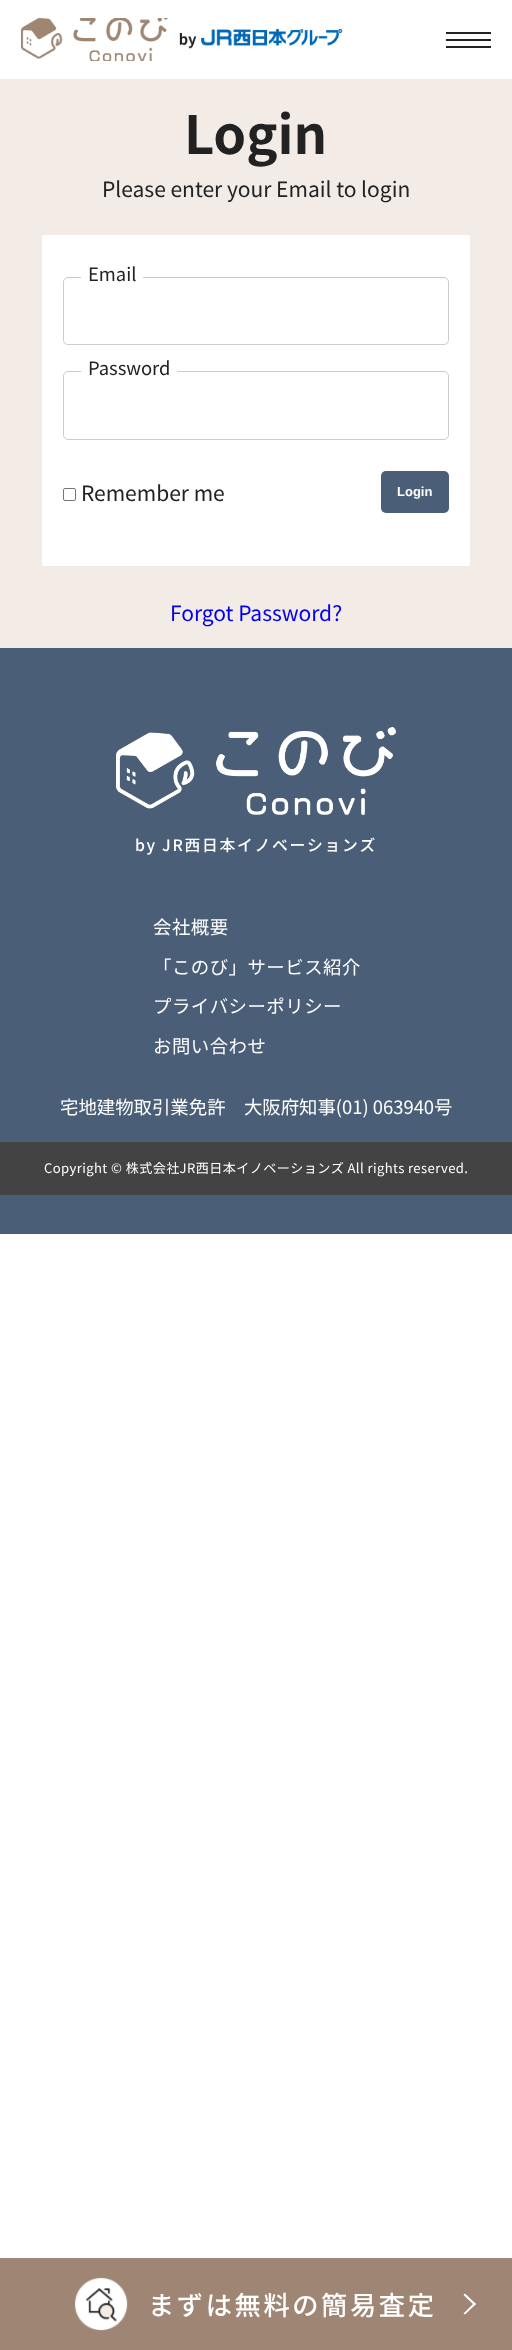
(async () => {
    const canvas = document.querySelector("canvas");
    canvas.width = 512;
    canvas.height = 2350;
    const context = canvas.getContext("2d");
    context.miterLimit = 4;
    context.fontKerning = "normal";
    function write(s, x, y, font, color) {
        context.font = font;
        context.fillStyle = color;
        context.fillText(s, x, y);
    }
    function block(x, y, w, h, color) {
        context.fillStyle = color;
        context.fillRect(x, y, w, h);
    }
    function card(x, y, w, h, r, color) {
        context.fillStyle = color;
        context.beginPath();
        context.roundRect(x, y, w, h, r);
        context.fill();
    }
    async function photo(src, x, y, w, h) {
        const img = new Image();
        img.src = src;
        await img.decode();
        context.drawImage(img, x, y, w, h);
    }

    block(0, 0, 512, 2350, "rgb(255, 255, 255)");
    await photo("media/1.png", 21, 18, 322, 43);
    block(446, 32, 45, 2, "rgb(34, 34, 34)");
    block(446, 39, 45, 2, "rgb(34, 34, 34)");
    block(446, 46, 45, 2, "rgb(34, 34, 34)");
    block(0, 79, 512, 569, "rgb(243, 235, 230)");
    write("Login", 184, 154, "bold 52.5px Noto Sans JP", "rgb(34, 34, 34)");
    write("Please enter your Email to login", 102, 197, "21px Noto Sans JP", "rgb(34, 34, 34)");
    block(42, 235, 428, 331, "rgb(255, 255, 255)");
    context.beginPath();
    context.roundRect(63.5, 277.5, 385, 67, 4.5);
    context.strokeStyle = "rgb(204, 204, 204)";
    context.stroke();
    block(81, 277, 62, 1, "rgb(255, 255, 255)");
    write("Email", 88, 281, "18.4px Noto Sans JP", "rgb(34, 34, 34)");
    context.beginPath();
    context.roundRect(63.5, 371.5, 385, 68, 4.5);
    context.stroke();
    block(81, 371, 96, 1, "rgb(255, 255, 255)");
    write("Password", 88, 375, "18.4px Noto Sans JP", "rgb(34, 34, 34)");
    context.beginPath();
    context.roundRect(63.5, 488.5, 12, 12, 1.5);
    context.strokeStyle = "rgb(118, 118, 118)";
    context.stroke();
    write("Remember me", 81, 501, "21px Noto Sans JP", "rgb(34, 34, 34)");
    card(381, 471, 68, 42, 5, "rgb(74, 95, 119)");
    write("Login", 397, 496, "bold 13px Liberation Sans", "rgb(255, 255, 255)");
    write("Forgot Password?", 170, 621, "21px Noto Sans JP", "rgb(0, 0, 238)");
    block(0, 648, 512, 586, "rgb(74, 95, 119)");
    await photo("media/2.png", 116, 727, 280, 88);
    context.letterSpacing = "1.75px";
    write("by JR西日本イノベーションズ", 135, 851, "500 15.75px Noto Sans JP", "rgb(255, 255, 255)");
    context.letterSpacing = "0.5px";
    write("会社概要", 153, 934, "18.4px Noto Sans JP", "rgb(255, 255, 255)");
    write("「このび」サービス紹介", 153, 974, "18.4px Noto Sans JP", "rgb(255, 255, 255)");
    write("プライバシーポリシー", 153, 1013, "18.4px Noto Sans JP", "rgb(255, 255, 255)");
    write("お問い合わせ", 153, 1053, "18.4px Noto Sans JP", "rgb(255, 255, 255)");
    context.letterSpacing = "0px";
    write("宅地建物取引業免許　大阪府知事(01) 063940号", 60, 1114, "18.4px Noto Sans JP", "rgb(255, 255, 255)");
    block(0, 1142, 512, 53, "rgb(67, 67, 67)");
    context.letterSpacing = "0.4px";
    write("Copyright © 株式会社JR西日本イノベーションズ All rights reserved.", 44, 1173, "13.1px Noto Sans JP", "rgb(255, 255, 255)");
    block(0, 2258, 512, 92, "rgb(159, 133, 116)");
    await photo("media/3.png", 74, 2277, 54, 54);
    context.letterSpacing = "2.6px";
    write("まずは無料の簡易査定", 148, 2315, "500 26.25px Noto Sans JP", "rgb(255, 255, 255)");
    context.beginPath();
    context.moveTo(465, 2293.5);
    context.lineTo(476, 2304);
    context.lineTo(474.5, 2305.5);
    context.lineTo(463.5, 2295);
    context.closePath();
    context.fill();
    context.beginPath();
    context.moveTo(474.5, 2302.5);
    context.lineTo(476, 2304);
    context.lineTo(465, 2314.5);
    context.lineTo(463.5, 2313.5);
    context.closePath();
    context.fill();
})();
